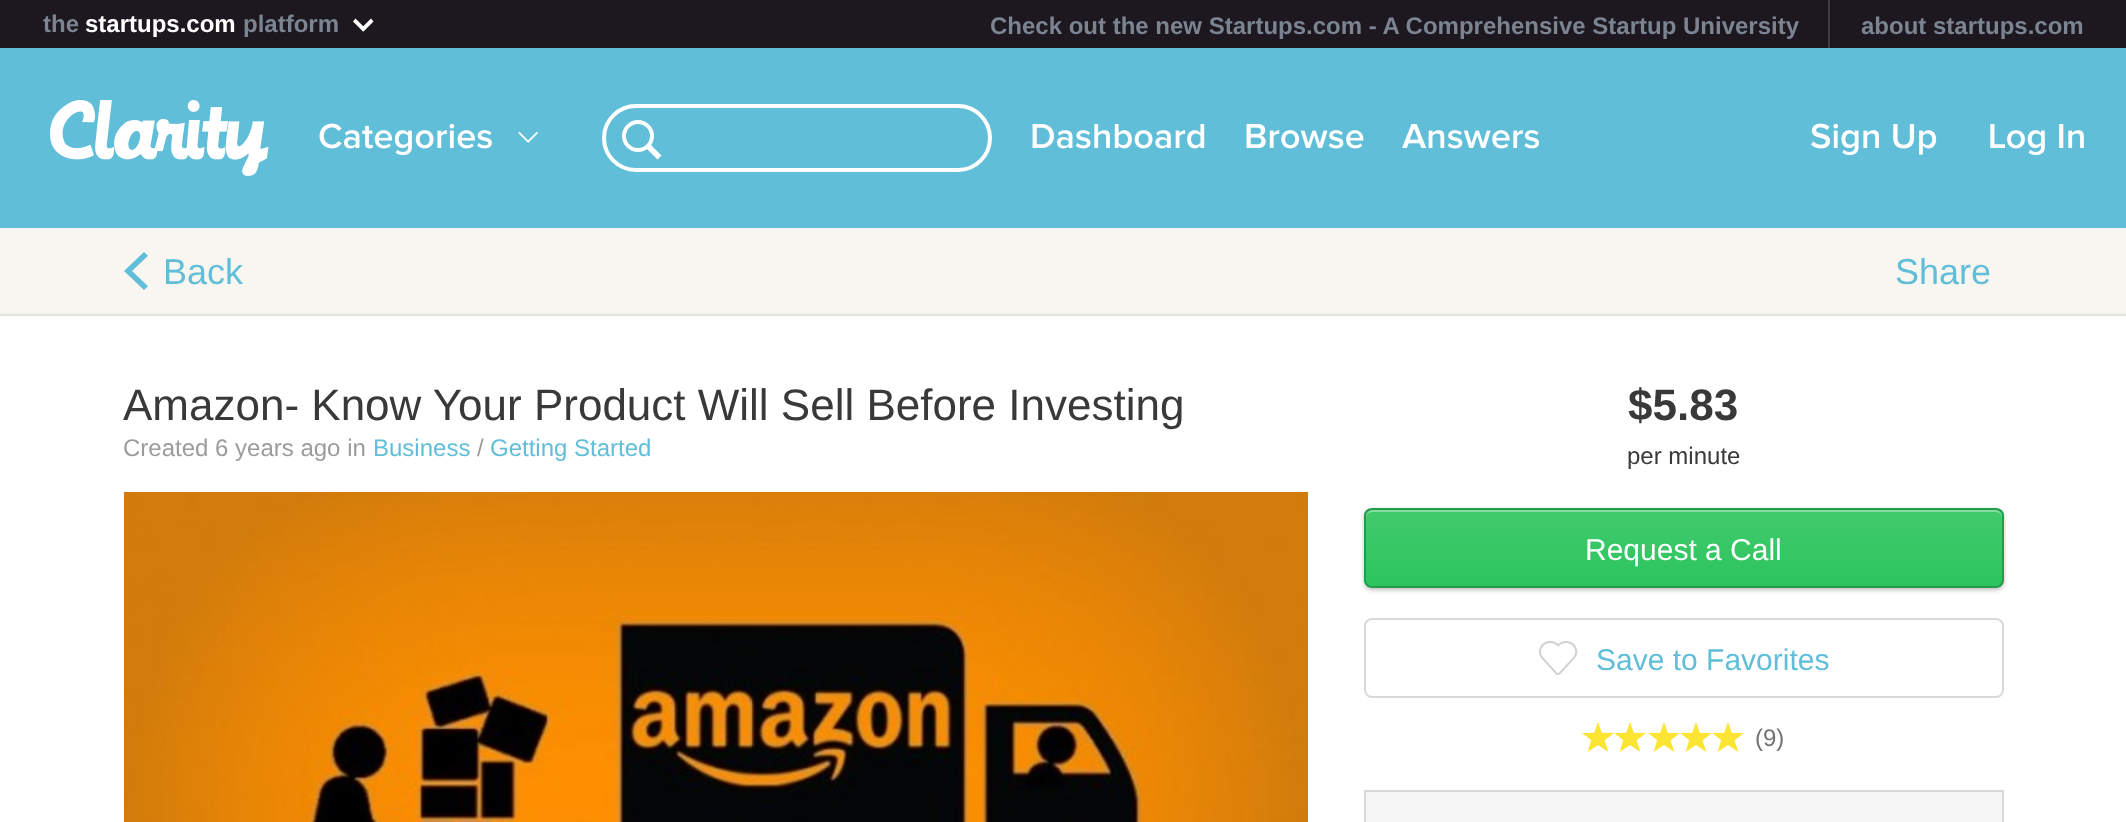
(async () => {
    const canvas = document.querySelector("canvas");
    canvas.width = 2126;
    canvas.height = 822;
    const context = canvas.getContext("2d");
    context.miterLimit = 4;
    context.fontKerning = "normal";
    function write(s, x, y, font, color) {
        context.font = font;
        context.fillStyle = color;
        context.fillText(s, x, y);
    }
    function block(x, y, w, h, color) {
        context.fillStyle = color;
        context.fillRect(x, y, w, h);
    }
    async function photo(src, x, y, w, h) {
        const img = new Image();
        img.src = src;
        await img.decode();
        context.drawImage(img, x, y, w, h);
    }
    let gradient;

    block(0, 0, 2126, 822, "rgb(255, 255, 255)");
    block(0, 0, 2126, 48, "rgb(29, 24, 31)");
    write("the", 43, 32, "bold 24px Liberation Sans", "rgb(123, 132, 144)");
    write("startups.com", 85, 32, "bold 24px Liberation Sans", "rgb(255, 255, 255)");
    write("platform", 243, 32, "bold 24px Liberation Sans", "rgb(123, 132, 144)");
    context.fillStyle = "rgb(255, 255, 255)";
    context.beginPath();
    context.moveTo(365.5, 28.5);
    context.lineTo(363, 31.5);
    context.lineTo(353, 21.5);
    context.lineTo(355.5, 18.5);
    context.closePath();
    context.fill();
    context.beginPath();
    context.moveTo(363.5, 31.5);
    context.lineTo(361, 28.5);
    context.lineTo(371, 18.5);
    context.lineTo(373.5, 21.5);
    context.closePath();
    context.fill();
    block(1828, 0, 2, 48, "rgb(62, 61, 71)");
    write("Check out the new Startups.com - A Comprehensive Startup University", 990, 34, "bold 24px Liberation Sans", "rgb(123, 132, 144)");
    write("about startups.com", 1861, 34, "bold 24px Liberation Sans", "rgb(123, 132, 144)");
    block(0, 48, 2126, 180, "rgb(97, 190, 217)");
    await photo("media/1.png", 50, 100, 219, 76);
    await photo("media/2.png", 319, 123, 173, 32);
    await photo("media/3.png", 518, 131, 20, 12);
    context.beginPath();
    context.roundRect(604, 106, 386, 64, 32);
    context.strokeStyle = "rgb(255, 255, 255)";
    context.lineWidth = 4;
    context.stroke();
    context.beginPath();
    context.arc(638, 136, 14, 0, Math.PI * 2);
    context.stroke();
    context.fillStyle = "rgb(255, 255, 255)";
    context.beginPath();
    context.moveTo(646, 148);
    context.lineTo(650, 144);
    context.lineTo(661.5, 155.5);
    context.lineTo(657.5, 159.5);
    context.closePath();
    context.fill("evenodd");
    await photo("media/4.png", 1032, 124, 173, 25);
    await photo("media/5.png", 1246, 124, 118, 25);
    await photo("media/6.png", 1402, 124, 137, 25);
    await photo("media/7.png", 1811, 123, 126, 33);
    await photo("media/8.png", 1990, 124, 94, 32);
    block(0, 228, 2126, 86, "rgb(247, 246, 241)");
    block(0, 314, 2126, 2, "rgb(228, 226, 222)");
    await photo("media/9.png", 124, 252, 24, 38);
    write("Back", 163, 284, "36px Liberation Sans", "rgb(97, 190, 217)");
    write("Share", 1895, 284, "36px Liberation Sans", "rgb(97, 190, 217)");
    write("Amazon- Know Your Product Will Sell Before Investing", 123, 420, "44px Liberation Sans", "rgb(57, 57, 57)");
    write("Created 6 years ago in", 123, 456, "24px Liberation Sans", "rgb(156, 156, 156)");
    write("Business", 373, 456, "24px Liberation Sans", "rgb(97, 190, 217)");
    write("/", 477, 456, "24px Liberation Sans", "rgb(156, 156, 156)");
    write("Getting Started", 490, 456, "24px Liberation Sans", "rgb(97, 190, 217)");
    await photo("media/10.png", 124, 492, 1184, 330);
    write("$5.83", 1628, 420, "bold 44px Liberation Sans", "rgb(57, 57, 57)");
    write("per minute", 1627, 464, "24px Liberation Sans", "rgb(57, 57, 57)");
    context.fillStyle = "rgba(0, 0, 0, 0.25)";
    context.filter = "blur(2px)";
    context.beginPath();
    context.roundRect(1364, 510, 640, 80, 8);
    context.fill();
    context.filter = "none";
    context.save();
    context.beginPath();
    context.roundRect(1364, 508, 640, 80, 8);
    context.clip();
    gradient = context.createLinearGradient(1684, 510, 1684, 586);
    gradient.addColorStop(0, "rgb(65, 202, 109)");
    gradient.addColorStop(1, "rgb(44, 197, 93)");
    context.fillStyle = gradient;
    context.fillRect(1364, 510, 640, 76);
    context.restore();
    context.fillStyle = "rgb(131, 221, 160)";
    context.beginPath();
    context.moveTo(1372, 512);
    context.lineTo(1996, 512);
    context.bezierCurveTo(1999, 512, 2002, 515, 2002, 518);
    context.lineTo(2002, 516);
    context.bezierCurveTo(2002, 513, 1999, 510, 1996, 510);
    context.lineTo(1372, 510);
    context.bezierCurveTo(1369, 510, 1366, 513, 1366, 516);
    context.lineTo(1366, 518);
    context.bezierCurveTo(1366, 515, 1369, 512, 1372, 512);
    context.closePath();
    context.fill();
    context.beginPath();
    context.roundRect(1365, 509, 638, 78, 7);
    context.strokeStyle = "rgb(35, 157, 74)";
    context.lineWidth = 2;
    context.stroke();
    write("Request a Call", 1585, 560, "30px Liberation Sans", "rgb(255, 255, 255)");
    context.beginPath();
    context.roundRect(1365, 619, 638, 78, 7);
    context.strokeStyle = "rgb(217, 217, 217)";
    context.stroke();
    await photo("media/11.png", 1539, 641, 39, 34);
    write("Save to Favorites", 1596, 670, "30px Liberation Sans", "rgb(97, 190, 217)");
    await photo("media/12.png", 1582, 722, 32, 30);
    await photo("media/12.png", 1614, 722, 32, 30);
    await photo("media/12.png", 1648, 722, 32, 30);
    await photo("media/12.png", 1680, 722, 32, 30);
    await photo("media/12.png", 1712, 722, 32, 30);
    write("(9)", 1755, 746, "24px Liberation Sans", "rgb(116, 116, 116)");
    context.fillStyle = "rgb(247, 247, 247)";
    context.beginPath();
    context.rect(1365, 791, 638, 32);
    context.fill();
    context.stroke();
})();
